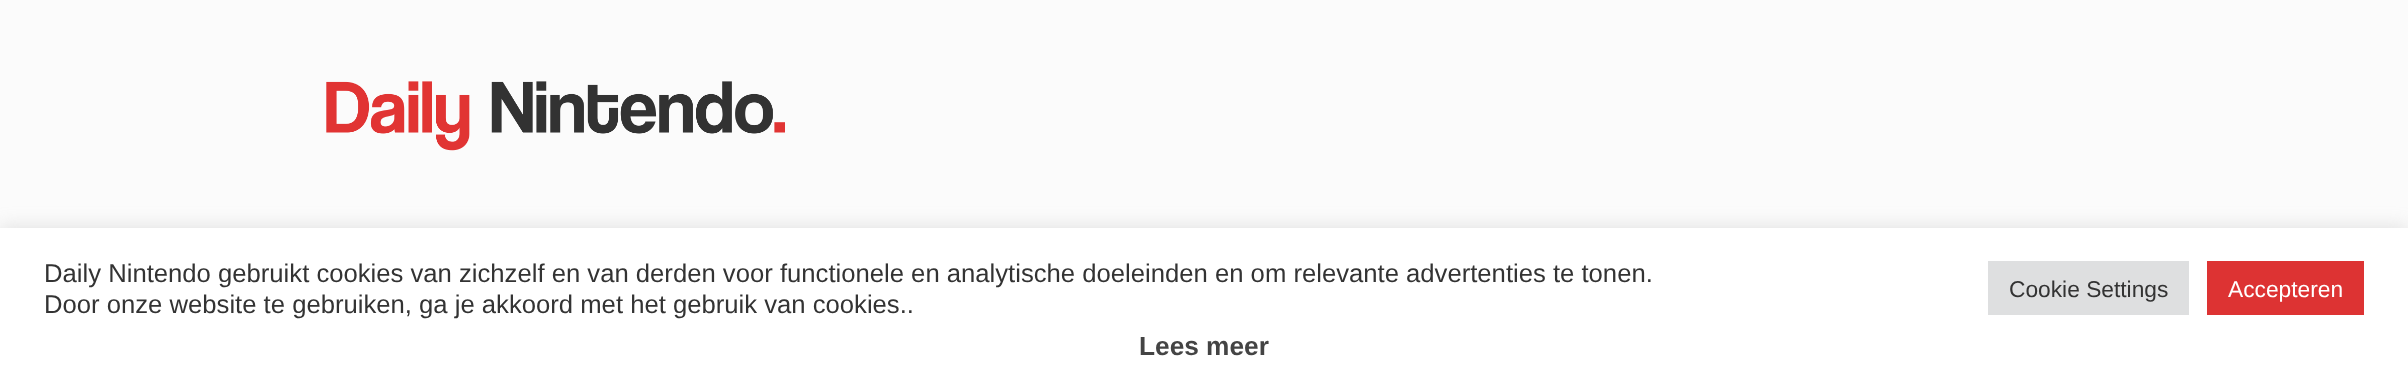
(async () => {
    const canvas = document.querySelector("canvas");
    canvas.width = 2408;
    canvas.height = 387;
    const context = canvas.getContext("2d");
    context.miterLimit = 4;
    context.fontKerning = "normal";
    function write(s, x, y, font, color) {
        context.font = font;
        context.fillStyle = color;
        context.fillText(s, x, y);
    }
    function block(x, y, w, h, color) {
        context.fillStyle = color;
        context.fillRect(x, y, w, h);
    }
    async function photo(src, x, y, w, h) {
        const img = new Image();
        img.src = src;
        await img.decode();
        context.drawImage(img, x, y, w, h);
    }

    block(0, 0, 2408, 387, "rgb(251, 251, 251)");
    await photo("media/1.png", 326, 81, 459, 70);
    context.fillStyle = "rgba(172, 171, 171, 0.3)";
    context.filter = "blur(9px)";
    context.beginPath();
    context.rect(0, 226, 2408, 161);
    context.fill();
    context.filter = "none";
    block(0, 228, 2408, 159, "rgb(255, 255, 255)");
    write("Daily Nintendo gebruikt cookies van zichzelf en van derden voor functionele en analytische doeleinden en om relevante advertenties te tonen.", 44, 282, "25.67px Liberation Sans", "rgb(51, 51, 51)");
    write("Door onze website te gebruiken, ga je akkoord met het gebruik van cookies..", 44, 313, "25.67px Liberation Sans", "rgb(51, 51, 51)");
    block(1988, 261, 201, 54, "rgb(222, 223, 224)");
    write("Cookie Settings", 2009, 297, "22.75px Liberation Sans", "rgb(51, 51, 51)");
    block(2207, 261, 157, 54, "rgb(221, 51, 51)");
    write("Accepteren", 2228, 297, "22.75px Liberation Sans", "rgb(255, 255, 255)");
    write("Lees meer", 1139, 355, "bold 26.25px Liberation Sans", "rgb(68, 68, 68)");
})();
